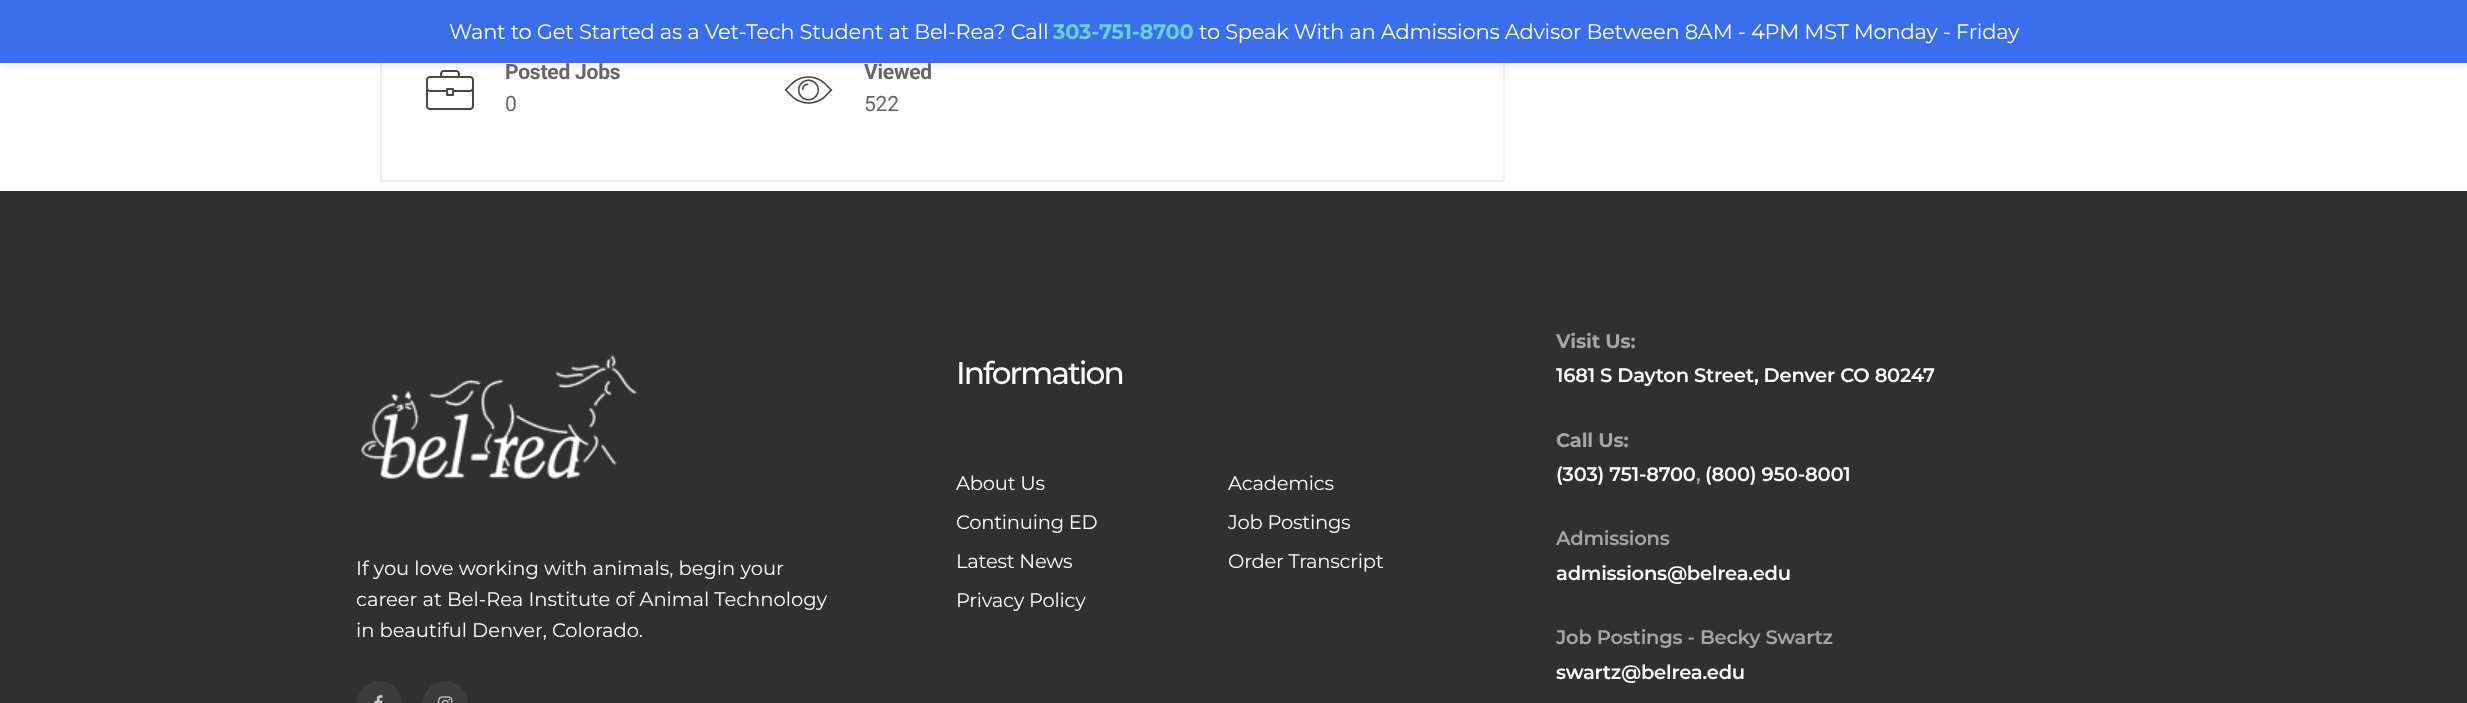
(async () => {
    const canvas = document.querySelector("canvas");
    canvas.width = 2467;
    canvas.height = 703;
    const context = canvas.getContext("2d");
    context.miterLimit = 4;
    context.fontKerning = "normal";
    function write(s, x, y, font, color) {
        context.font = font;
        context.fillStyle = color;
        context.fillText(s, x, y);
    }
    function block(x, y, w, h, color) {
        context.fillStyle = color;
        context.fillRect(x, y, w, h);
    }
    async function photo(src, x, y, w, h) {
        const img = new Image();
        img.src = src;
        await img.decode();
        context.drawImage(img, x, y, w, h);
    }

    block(0, 0, 2467, 703, "rgb(255, 255, 255)");
    context.strokeStyle = "rgb(239, 239, 239)";
    context.lineWidth = 2;
    context.strokeRect(381, -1, 1123, 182);
    await photo("media/1.png", 426, 70, 48, 40);
    await photo("media/2.png", 784, 76, 49, 28);
    context.fillStyle = "rgba(0, 0, 0, 0.05)";
    context.filter = "blur(3px)";
    context.beginPath();
    context.rect(0, 5, 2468, 63);
    context.fill();
    context.filter = "none";
    block(0, 0, 2467, 63, "rgb(59, 110, 237)");
    context.letterSpacing = "-0.22px";
    write("Want to Get Started as a Vet-Tech Student at Bel-Rea? Call", 449, 39, "21px Montserrat", "rgb(255, 255, 255)");
    write("303-751-8700", 1053, 39, "bold 21px Montserrat", "rgb(103, 208, 211)");
    write("to Speak With an Admissions Advisor Between 8AM - 4PM MST Monday - Friday", 1199, 39, "21px Montserrat", "rgb(255, 255, 255)");
    write("Posted Jobs", 505, 79, "bold 21px Roboto", "rgb(102, 102, 102)");
    write("0", 505, 111, "21px Roboto", "rgb(102, 102, 102)");
    write("Viewed", 864, 79, "bold 21px Roboto", "rgb(102, 102, 102)");
    write("522", 864, 111, "21px Roboto", "rgb(102, 102, 102)");
    block(0, 191, 2467, 512, "rgb(48, 48, 48)");
    await photo("media/3.png", 361, 355, 276, 124);
    context.letterSpacing = "0px";
    write("If you love working with animals, begin your", 356, 575, "19.5px Montserrat", "rgb(255, 255, 255)");
    write("career at Bel-Rea Institute of Animal Technology", 356, 606, "19.5px Montserrat", "rgb(255, 255, 255)");
    write("in beautiful Denver, Colorado.", 356, 637, "19.5px Montserrat", "rgb(255, 255, 255)");
    context.fillStyle = "rgb(60, 60, 60)";
    context.beginPath();
    context.arc(379.5, 703.5, 22.5, 0, Math.PI * 2);
    context.fill();
    await photo("media/4.png", 374, 695, 9, 8);
    context.beginPath();
    context.arc(445.5, 703.5, 22.5, 0, Math.PI * 2);
    context.fill();
    await photo("media/5.png", 438, 696, 15, 7);
    context.letterSpacing = "-2px";
    write("Information", 956, 384, "500 31.25px Montserrat", "rgb(255, 255, 255)");
    context.letterSpacing = "-0.22px";
    write("About Us", 956, 490, "19.5px Montserrat", "rgb(255, 255, 255)");
    write("Academics", 1228, 490, "19.5px Montserrat", "rgb(255, 255, 255)");
    write("Continuing ED", 956, 529, "19.5px Montserrat", "rgb(255, 255, 255)");
    write("Job Postings", 1228, 529, "19.5px Montserrat", "rgb(255, 255, 255)");
    write("Latest News", 956, 568, "19.5px Montserrat", "rgb(255, 255, 255)");
    write("Order Transcript", 1228, 568, "19.5px Montserrat", "rgb(255, 255, 255)");
    write("Privacy Policy", 956, 607, "19.5px Montserrat", "rgb(255, 255, 255)");
    write("Visit Us:", 1556, 348, "bold 19.5px Montserrat", "rgb(166, 166, 166)");
    write("1681 S Dayton Street, Denver CO 80247", 1556, 382, "600 19.5px Montserrat", "rgb(255, 255, 255)");
    write("Call Us:", 1556, 447, "bold 19.5px Montserrat", "rgb(166, 166, 166)");
    write("(303) 751-8700", 1556, 481, "600 19.5px Montserrat", "rgb(255, 255, 255)");
    write(",", 1696, 481, "600 19.5px Montserrat", "rgb(166, 166, 166)");
    write("(800) 950-8001", 1705, 481, "600 19.5px Montserrat", "rgb(255, 255, 255)");
    write("Admissions", 1556, 545, "600 19.5px Montserrat", "rgb(166, 166, 166)");
    write("admissions@belrea.edu", 1556, 580, "600 19.5px Montserrat", "rgb(255, 255, 255)");
    write("Job Postings - Becky Swartz", 1556, 644, "600 19.5px Montserrat", "rgb(166, 166, 166)");
    write("swartz@belrea.edu", 1556, 679, "600 19.5px Montserrat", "rgb(255, 255, 255)");
})();
